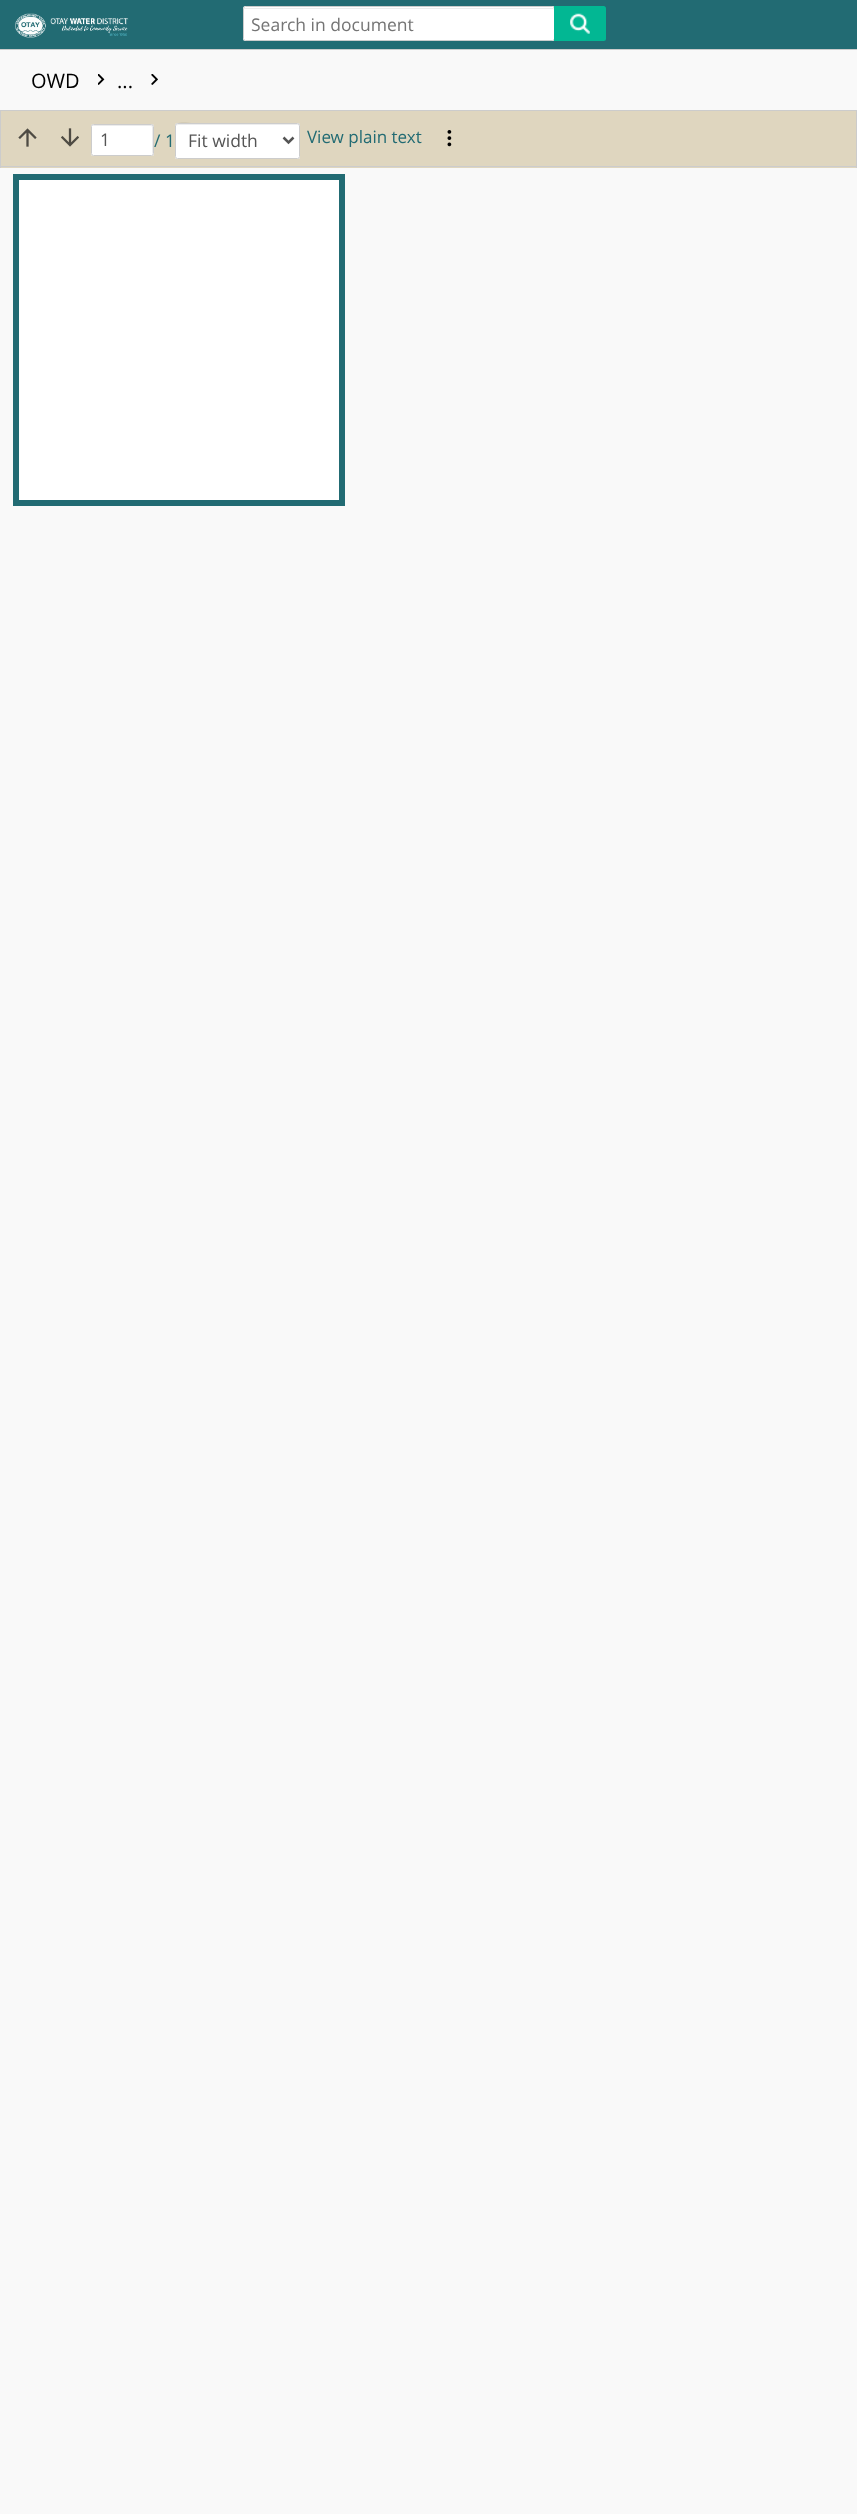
(async () => {
    const canvas = document.querySelector("canvas");
    canvas.width = 857;
    canvas.height = 2514;
    const context = canvas.getContext("2d");
    context.miterLimit = 4;
    context.fontKerning = "normal";
    function write(s, x, y, font, color) {
        context.font = font;
        context.fillStyle = color;
        context.fillText(s, x, y);
    }
    function block(x, y, w, h, color) {
        context.fillStyle = color;
        context.fillRect(x, y, w, h);
    }
    function card(x, y, w, h, r, color) {
        context.fillStyle = color;
        context.beginPath();
        context.roundRect(x, y, w, h, r);
        context.fill();
    }
    async function photo(src, x, y, w, h) {
        const img = new Image();
        img.src = src;
        await img.decode();
        context.drawImage(img, x, y, w, h);
    }

    block(0, 0, 857, 2514, "rgb(249, 249, 249)");
    block(0, 0, 857, 49, "rgb(34, 107, 115)");
    block(0, 49, 857, 1, "rgb(204, 204, 204)");
    await photo("media/1.png", 15, 13, 114, 25);
    card(243, 6, 312, 35, 2.5, "rgb(255, 255, 255)");
    context.fillStyle = "rgb(236, 236, 236)";
    context.beginPath();
    context.moveTo(245, 9);
    context.lineTo(552, 9);
    context.bezierCurveTo(553, 9, 554, 9, 554, 10);
    context.bezierCurveTo(554, 9, 554, 8, 553, 8);
    context.lineTo(245, 8);
    context.lineTo(244, 8);
    context.lineTo(244, 10);
    context.bezierCurveTo(244, 9, 244, 9, 245, 9);
    context.closePath();
    context.fill();
    context.beginPath();
    context.roundRect(243.5, 6.5, 311, 34, 2);
    context.strokeStyle = "rgb(204, 204, 204)";
    context.stroke();
    write("Search in document", 251, 31, "17.5px Open Sans", "rgb(117, 117, 117)");
    context.fillStyle = "rgb(2, 183, 147)";
    context.beginPath();
    context.roundRect(554, 6, 52, 35, [0, 2.5, 2.5, 0]);
    context.fill();
    await photo("media/2.png", 570, 13, 20, 21);
    block(0, 110, 857, 1, "rgb(204, 204, 204)");
    write("OWD", 31, 88, "20px Open Sans", "rgb(0, 0, 0)");
    await photo("media/3.png", 98, 74, 7, 11);
    await photo("media/4.png", 151, 74, 7, 11);
    write("...", 117, 88, "20px Open Sans", "rgb(0, 0, 0)");
    block(1, 111, 855, 57, "rgb(223, 214, 191)");
    block(856, 111, 1, 57, "rgb(204, 204, 204)");
    block(0, 166, 857, 1, "rgb(204, 204, 204)");
    block(0, 111, 1, 57, "rgb(204, 204, 204)");
    await photo("media/5.png", 18, 128, 19, 19);
    await photo("media/6.png", 61, 128, 18, 19);
    card(91, 124, 63, 32, 2.5, "rgb(255, 255, 255)");
    context.fillStyle = "rgb(236, 236, 236)";
    context.beginPath();
    context.moveTo(94, 126);
    context.lineTo(151, 126);
    context.bezierCurveTo(152, 126, 152, 127, 152, 128);
    context.lineTo(152, 155);
    context.bezierCurveTo(154, 155, 153, 139, 153, 135);
    context.bezierCurveTo(153, 122, 156, 125, 142, 125);
    context.lineTo(104, 125);
    context.bezierCurveTo(102, 125, 93, 123, 93, 126);
    context.closePath();
    context.fill();
    context.beginPath();
    context.roundRect(91.5, 124.5, 62, 31, 2);
    context.stroke();
    write("1", 100, 146, "17.5px Open Sans", "rgb(85, 85, 85)");
    write("/ 1", 154, 147, "17.5px Open Sans", "rgb(34, 107, 115)");
    card(175, 123, 125, 36, 2.5, "rgb(255, 255, 255)");
    context.fillStyle = "rgba(0, 0, 0, 0.07)";
    context.beginPath();
    context.moveTo(178, 125);
    context.lineTo(298, 125);
    context.lineTo(299, 126);
    context.lineTo(299, 124);
    context.lineTo(197, 124);
    context.bezierCurveTo(195, 124, 176, 119, 176, 126);
    context.closePath();
    context.fill();
    context.beginPath();
    context.roundRect(175.5, 123.5, 124, 35, 2);
    context.stroke();
    context.beginPath();
    context.moveTo(283.5, 137.5);
    context.lineTo(288.5, 142.5);
    context.lineTo(293.5, 137.5);
    context.strokeStyle = "rgb(85, 85, 85)";
    context.lineWidth = 2.5;
    context.stroke();
    write("Fit width", 188, 147, "17.5px Open Sans", "rgb(85, 85, 85)");
    write("View plain text", 307, 143, "17px Open Sans", "rgb(34, 107, 115)");
    await photo("media/7.png", 447, 130, 5, 17);
    context.fillStyle = "rgb(255, 255, 255)";
    context.beginPath();
    context.rect(16, 177, 326, 326);
    context.fill();
    context.strokeStyle = "rgb(34, 107, 115)";
    context.lineWidth = 6;
    context.stroke();
})();
